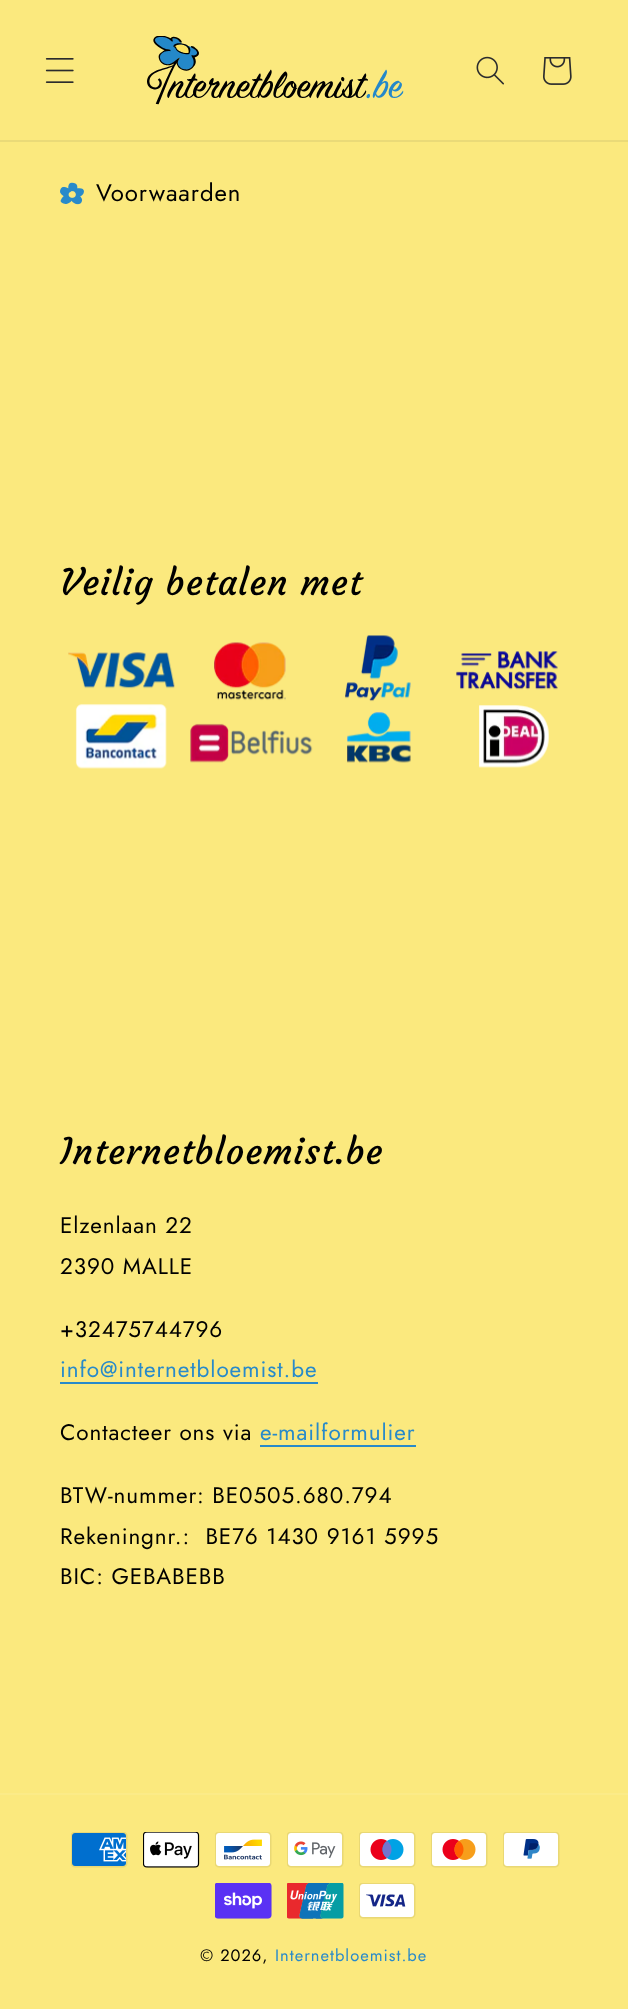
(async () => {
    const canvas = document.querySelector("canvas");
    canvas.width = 628;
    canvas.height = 2009;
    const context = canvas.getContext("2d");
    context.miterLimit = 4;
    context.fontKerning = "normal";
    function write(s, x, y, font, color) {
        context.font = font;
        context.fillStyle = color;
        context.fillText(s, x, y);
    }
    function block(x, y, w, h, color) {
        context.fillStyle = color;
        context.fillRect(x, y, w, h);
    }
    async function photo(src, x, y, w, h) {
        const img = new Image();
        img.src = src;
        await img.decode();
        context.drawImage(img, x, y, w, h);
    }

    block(0, 0, 628, 2009, "rgb(251, 233, 126)");
    block(0, 140, 628, 2, "rgb(234, 218, 120)");
    await photo("media/1.png", 45, 58, 29, 25);
    await photo("media/2.png", 147, 36, 257, 69);
    await photo("media/3.png", 476, 56, 28, 29);
    await photo("media/4.png", 543, 57, 29, 28);
    await photo("media/5.png", 60, 182, 24, 23);
    context.letterSpacing = "0.9px";
    write("Voorwaarden", 96, 201, "24px Jost", "rgb(0, 0, 0)");
    context.letterSpacing = "1px";
    write("Veilig betalen met", 60, 595, "36px Courgette", "rgb(0, 0, 0)");
    await photo("media/6.png", 68, 635, 490, 134);
    write("Internetbloemist.be", 60, 1164, "36px Courgette", "rgb(0, 0, 0)");
    context.letterSpacing = "0.9px";
    write("Elzenlaan 22", 60, 1233, "22.5px Jost", "rgb(0, 0, 0)");
    write("2390 MALLE", 60, 1274, "22.5px Jost", "rgb(0, 0, 0)");
    write("+32475744796", 60, 1337, "22.5px Jost", "rgb(0, 0, 0)");
    write("info@internetbloemist.be", 60, 1377, "22.5px Jost", "rgb(40, 138, 202)");
    block(60, 1382, 258, 2, "rgb(40, 138, 202)");
    write("Contacteer ons via", 60, 1440, "22.5px Jost", "rgb(0, 0, 0)");
    write("e-mailformulier", 260, 1440, "22.5px Jost", "rgb(40, 138, 202)");
    block(260, 1445, 156, 2, "rgb(40, 138, 202)");
    write("BTW-nummer: BE0505.680.794", 60, 1503, "22.5px Jost", "rgb(0, 0, 0)");
    write("Rekeningnr.:  BE76 1430 9161 5995", 60, 1544, "22.5px Jost", "rgb(0, 0, 0)");
    write("BIC: GEBABEBB", 60, 1584, "22.5px Jost", "rgb(0, 0, 0)");
    block(0, 1793, 628, 2, "rgb(251, 235, 136)");
    await photo("media/7.png", 71, 1832, 57, 36);
    await photo("media/8.png", 143, 1832, 57, 36);
    await photo("media/9.png", 215, 1832, 57, 36);
    await photo("media/10.png", 287, 1832, 57, 36);
    await photo("media/11.png", 359, 1832, 57, 36);
    await photo("media/12.png", 431, 1832, 57, 36);
    await photo("media/13.png", 503, 1832, 57, 36);
    await photo("media/14.png", 215, 1883, 57, 36);
    await photo("media/15.png", 287, 1883, 57, 36);
    await photo("media/16.png", 359, 1883, 57, 36);
    context.letterSpacing = "1px";
    write("© 2026,", 200, 1961, "16.5px Jost", "rgb(0, 0, 0)");
    write("Internetbloemist.be", 275, 1961, "16.5px Jost", "rgb(40, 138, 202)");
})();
